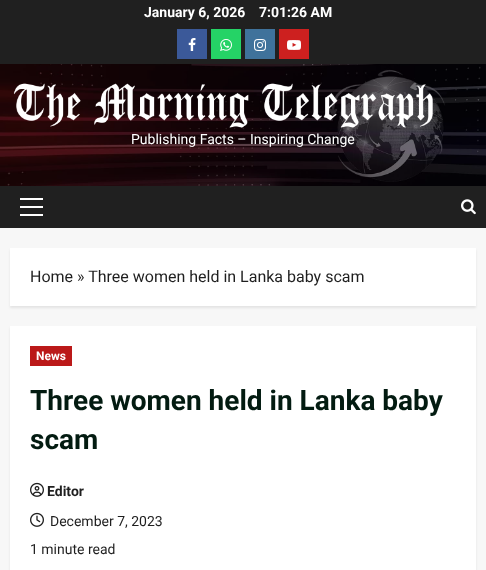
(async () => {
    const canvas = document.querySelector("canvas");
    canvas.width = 486;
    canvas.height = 570;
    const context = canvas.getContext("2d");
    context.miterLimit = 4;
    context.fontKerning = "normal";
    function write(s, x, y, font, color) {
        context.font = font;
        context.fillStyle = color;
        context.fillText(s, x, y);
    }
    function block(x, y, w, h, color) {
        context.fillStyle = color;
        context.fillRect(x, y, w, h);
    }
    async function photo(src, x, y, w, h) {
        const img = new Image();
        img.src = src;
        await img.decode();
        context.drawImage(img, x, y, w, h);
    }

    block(0, 0, 486, 570, "rgb(247, 247, 247)");
    block(0, 0, 486, 64, "rgb(32, 32, 32)");
    write("January 6, 2026", 144, 17, "bold 14px Roboto", "rgb(255, 255, 255)");
    write("7:01:26 AM", 259, 17, "bold 14px Roboto", "rgb(255, 255, 255)");
    block(177, 29, 30, 30, "rgb(59, 89, 153)");
    await photo("media/1.png", 188, 38, 8, 13);
    block(211, 29, 30, 30, "rgb(37, 211, 102)");
    await photo("media/2.png", 220, 39, 12, 12);
    block(245, 29, 30, 30, "rgb(63, 114, 155)");
    await photo("media/3.png", 254, 39, 12, 12);
    block(279, 29, 30, 30, "rgb(205, 32, 31)");
    await photo("media/4.png", 287, 40, 14, 10);
    await photo("media/5.png", 0, 64, 486, 122);
    await photo("media/6.png", 13, 83, 420, 45);
    write("Publishing Facts – Inspiring Change", 131, 144, "14px Roboto", "rgb(255, 255, 255)");
    block(0, 186, 486, 42, "rgb(32, 32, 32)");
    block(20, 206, 23, 2, "rgb(255, 255, 255)");
    block(20, 198, 23, 2, "rgb(255, 255, 255)");
    block(20, 214, 23, 2, "rgb(255, 255, 255)");
    await photo("media/7.png", 461, 199, 15, 16);
    context.fillStyle = "rgba(0, 0, 0, 0.08)";
    context.filter = "blur(1px)";
    context.beginPath();
    context.rect(10, 250, 466, 58);
    context.fill();
    context.filter = "none";
    block(10, 248, 466, 58, "rgb(255, 255, 255)");
    write("Home » Three women held in Lanka baby scam", 30, 282, "16px Roboto", "rgb(31, 31, 31)");
    context.fillStyle = "rgba(0, 0, 0, 0.08)";
    context.filter = "blur(1px)";
    context.beginPath();
    context.rect(10, 328, 466, 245);
    context.fill();
    context.filter = "none";
    block(10, 326, 466, 244, "rgb(255, 255, 255)");
    block(30, 346, 42, 20, "rgb(187, 25, 25)");
    write("News", 36, 360, "bold 12px Roboto", "rgb(255, 255, 255)");
    write("Three women held in Lanka baby", 30, 410, "bold 28px Roboto", "rgb(3, 27, 17)");
    write("scam", 30, 449, "bold 28px Roboto", "rgb(3, 27, 17)");
    await photo("media/8.png", 30, 482, 14, 15);
    write("Editor", 47, 496, "bold 14px Roboto", "rgb(31, 31, 31)");
    await photo("media/9.png", 30, 512, 14, 15);
    write("December 7, 2023", 50, 526, "14px Roboto", "rgb(31, 31, 31)");
    write("1 minute read", 30, 554, "14px Roboto", "rgb(31, 31, 31)");
})();
